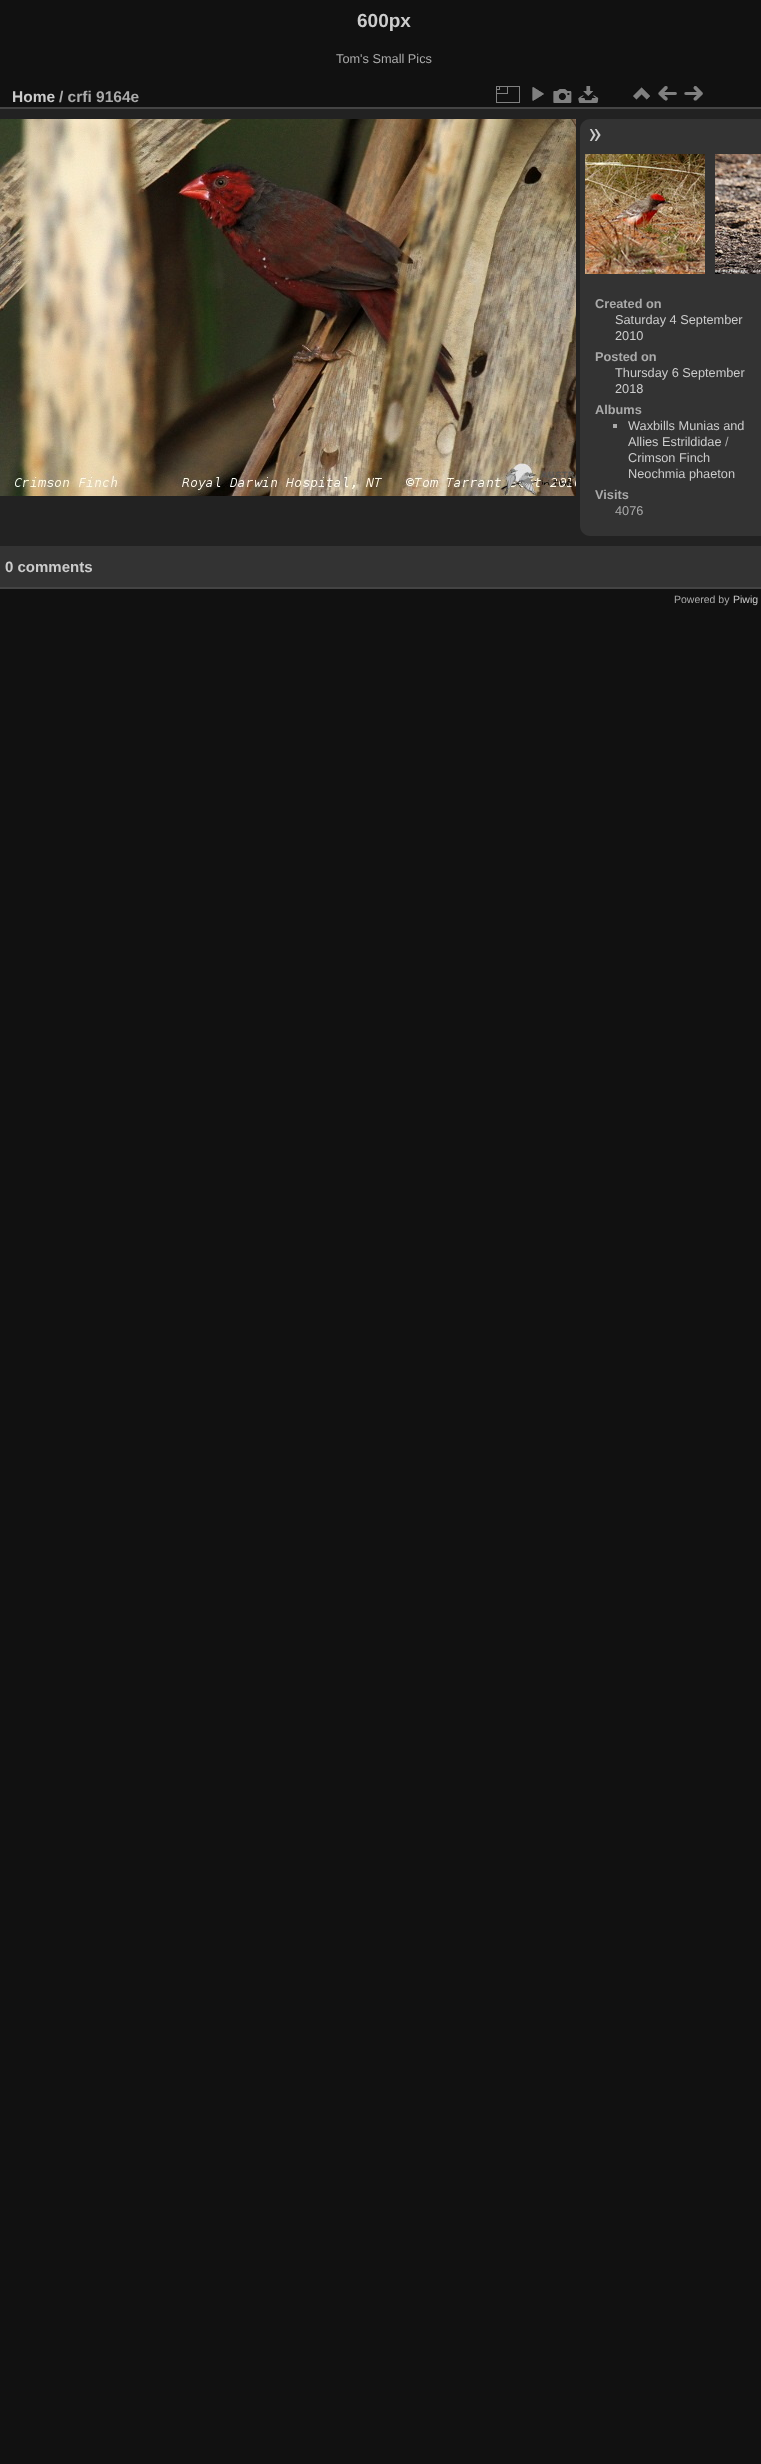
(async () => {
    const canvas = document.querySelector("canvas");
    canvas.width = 761;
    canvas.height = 2464;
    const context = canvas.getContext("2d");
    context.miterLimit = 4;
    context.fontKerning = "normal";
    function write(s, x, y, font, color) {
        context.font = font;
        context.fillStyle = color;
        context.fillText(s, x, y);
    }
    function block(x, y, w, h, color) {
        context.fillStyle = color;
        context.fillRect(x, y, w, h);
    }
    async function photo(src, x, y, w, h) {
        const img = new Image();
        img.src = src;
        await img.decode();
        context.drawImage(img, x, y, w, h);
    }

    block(0, 0, 761, 2464, "rgb(17, 17, 17)");
    write("600px", 357, 27, "bold 19px Liberation Sans", "rgb(204, 204, 204)");
    write("Tom's Small Pics", 336, 63, "12.75px Liberation Sans", "rgb(170, 170, 170)");
    block(0, 109, 761, 437, "rgb(34, 34, 34)");
    block(0, 587, 761, 2, "rgb(68, 68, 68)");
    block(0, 107, 761, 2, "rgb(68, 68, 68)");
    write("Home", 12, 102, "bold 15.5px Liberation Sans", "rgb(204, 204, 204)");
    write("/ crfi 9164e", 59, 102, "bold 15.5px Liberation Sans", "rgb(170, 170, 170)");
    await photo("media/1.png", 496, 86, 24, 17);
    await photo("media/2.png", 532, 87, 12, 14);
    await photo("media/3.png", 553, 89, 19, 14);
    await photo("media/4.png", 578, 86, 21, 17);
    await photo("media/5.png", 633, 87, 17, 13);
    await photo("media/6.png", 658, 86, 19, 15);
    await photo("media/7.png", 684, 86, 19, 15);
    await photo("media/8.png", 0, 119, 576, 377);
    context.fillStyle = "rgb(51, 51, 51)";
    context.beginPath();
    context.moveTo(590, 119);
    context.lineTo(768, 119);
    context.lineTo(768, 536);
    context.lineTo(590, 536);
    context.bezierCurveTo(584.5, 536, 580, 531.5, 580, 526);
    context.lineTo(580, 129);
    context.bezierCurveTo(580, 123.5, 584.5, 119, 590, 119);
    context.closePath();
    context.fill();
    await photo("media/9.png", 589, 129, 12, 12);
    await photo("media/10.png", 585, 154, 120, 120);
    await photo("media/11.png", 715, 154, 46, 120);
    write("Created on", 595, 308, "bold 12.75px Liberation Sans", "rgb(170, 170, 170)");
    write("Saturday 4 September", 615, 324, "12.75px Liberation Sans", "rgb(204, 204, 204)");
    write("2010", 615, 340, "12.75px Liberation Sans", "rgb(204, 204, 204)");
    write("Posted on", 595, 361, "bold 12.75px Liberation Sans", "rgb(170, 170, 170)");
    write("Thursday 6 September", 615, 377, "12.75px Liberation Sans", "rgb(204, 204, 204)");
    write("2018", 615, 393, "12.75px Liberation Sans", "rgb(204, 204, 204)");
    write("Albums", 595, 414, "bold 12.75px Liberation Sans", "rgb(170, 170, 170)");
    block(613, 424, 4, 4, "rgb(170, 170, 170)");
    write("Waxbills Munias and", 628, 430, "12.75px Liberation Sans", "rgb(204, 204, 204)");
    write("Allies Estrildidae", 628, 446, "12.75px Liberation Sans", "rgb(204, 204, 204)");
    write("/", 725, 446, "12.75px Liberation Sans", "rgb(170, 170, 170)");
    write("Crimson Finch", 628, 462, "12.75px Liberation Sans", "rgb(204, 204, 204)");
    write("Neochmia phaeton", 628, 478, "12.75px Liberation Sans", "rgb(204, 204, 204)");
    write("Visits", 595, 499, "bold 12.75px Liberation Sans", "rgb(170, 170, 170)");
    write("4076", 615, 515, "12.75px Liberation Sans", "rgb(170, 170, 170)");
    block(0, 546, 761, 41, "rgb(51, 51, 51)");
    write("0 comments", 5, 572, "bold 15px Liberation Sans", "rgb(204, 204, 204)");
    write("Powered by", 674, 603, "10.5px Liberation Sans", "rgb(170, 170, 170)");
    write("Piwig", 733, 603, "10.5px Liberation Sans", "rgb(204, 204, 204)");
})();
